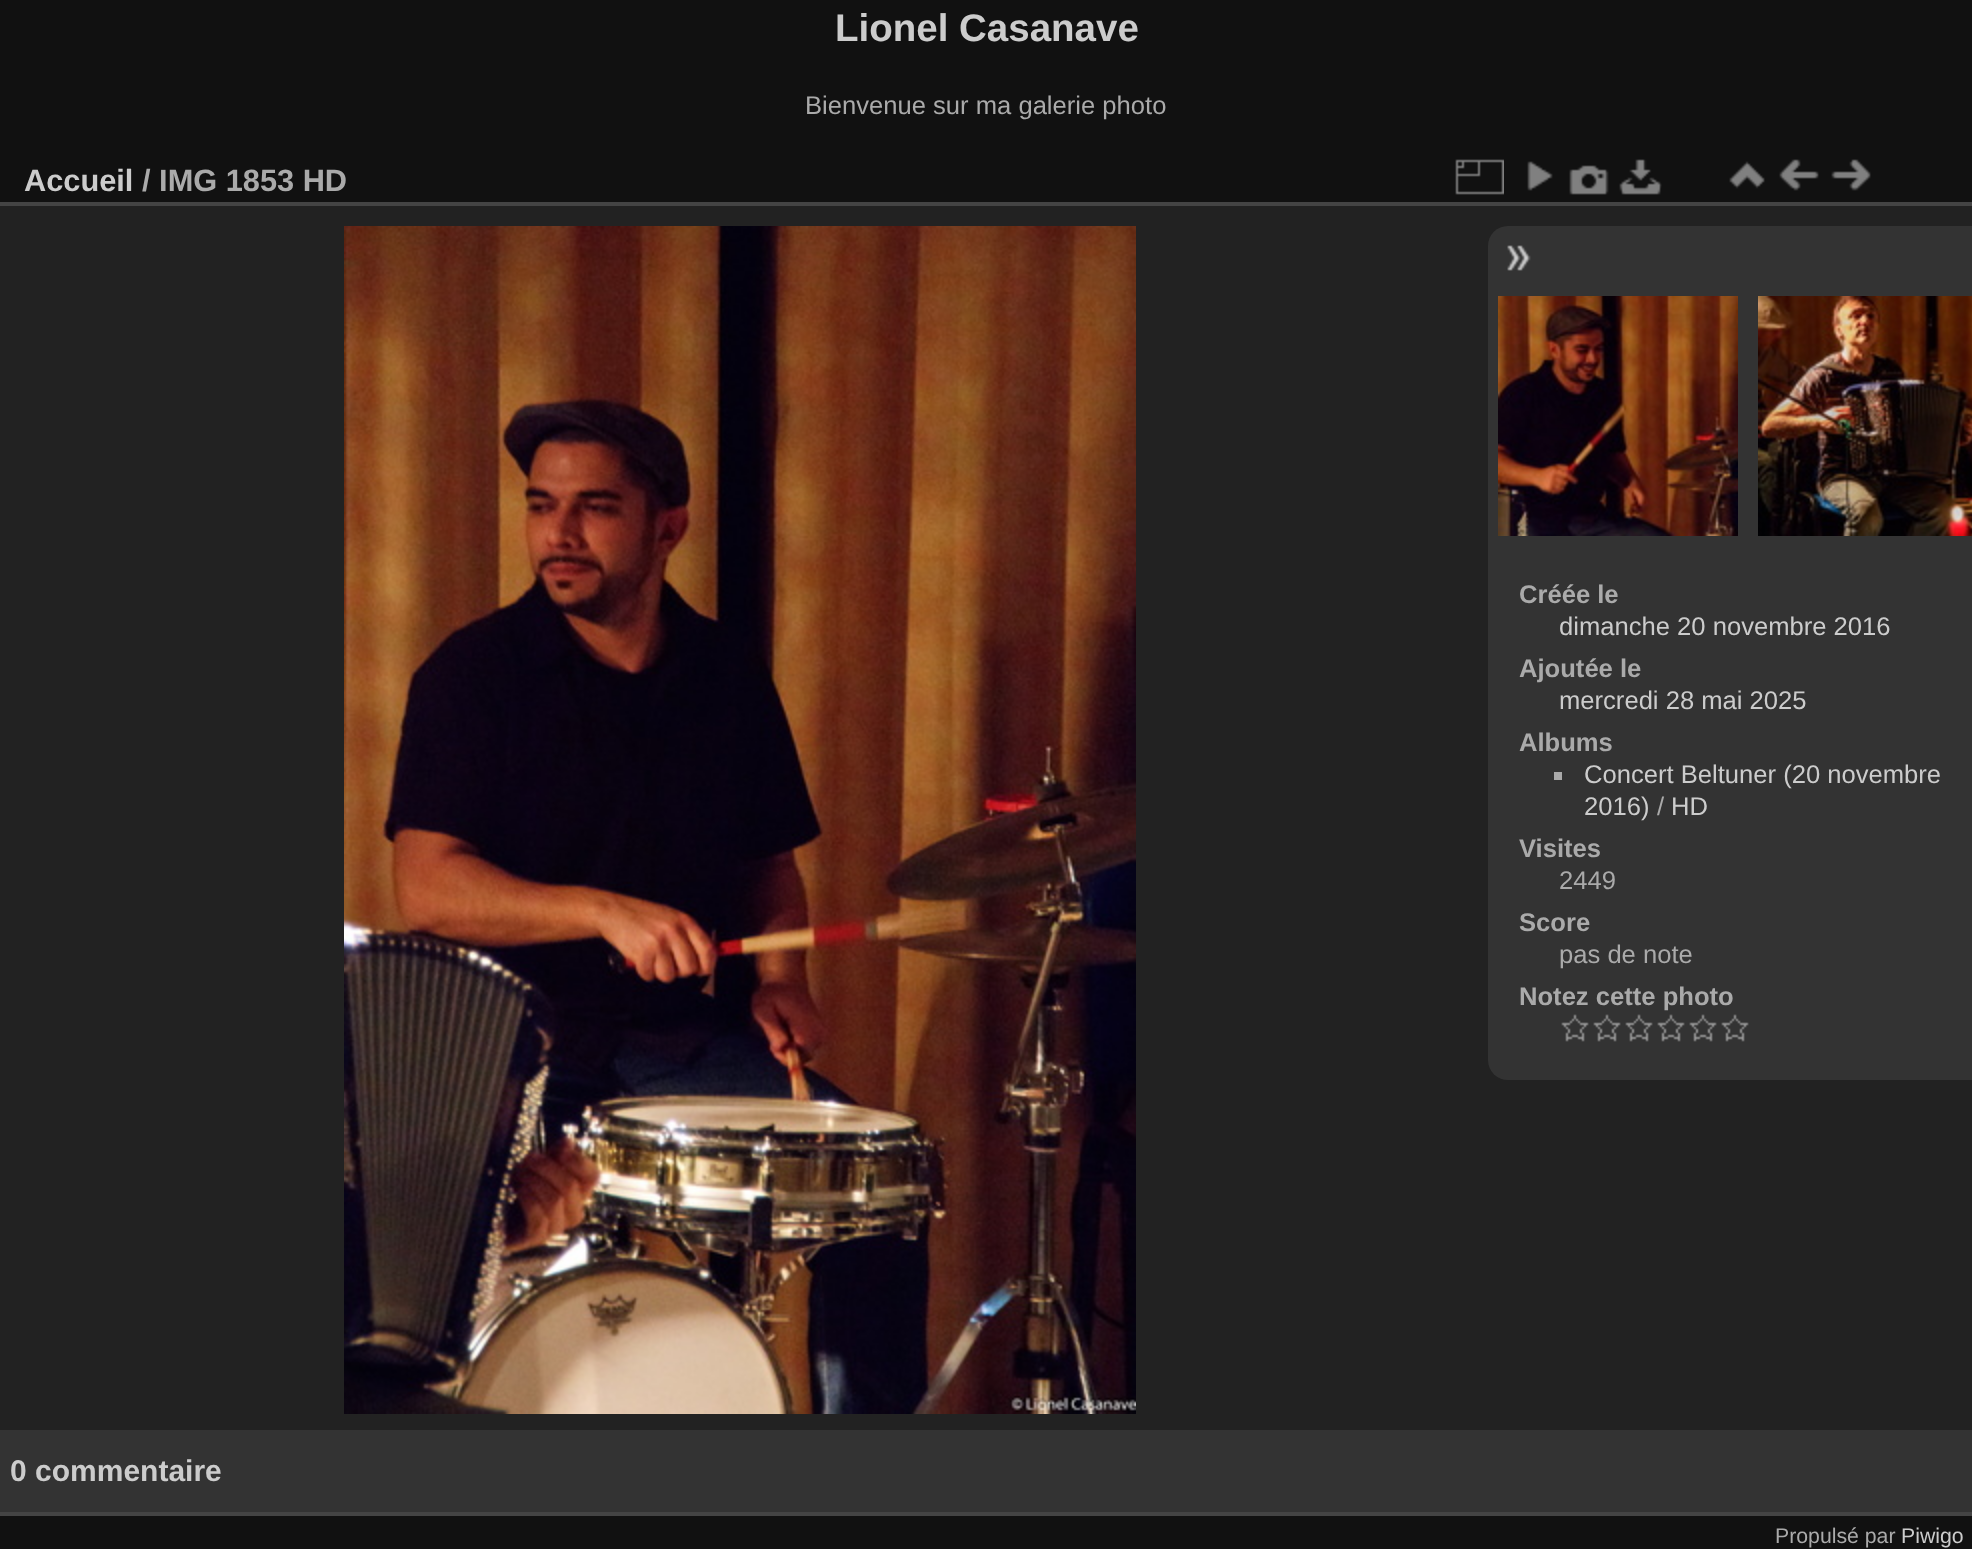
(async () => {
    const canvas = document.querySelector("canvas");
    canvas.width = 1972;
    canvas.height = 1549;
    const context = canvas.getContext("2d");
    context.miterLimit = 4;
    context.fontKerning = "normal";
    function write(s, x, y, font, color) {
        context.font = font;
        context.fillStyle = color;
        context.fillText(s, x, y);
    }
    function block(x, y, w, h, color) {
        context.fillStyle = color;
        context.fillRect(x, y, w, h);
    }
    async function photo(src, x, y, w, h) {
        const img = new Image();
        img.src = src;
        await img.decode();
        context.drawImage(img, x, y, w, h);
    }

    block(0, 0, 1972, 1549, "rgb(17, 17, 17)");
    write("Lionel Casanave", 835, 41, "bold 38.5px Liberation Sans", "rgb(204, 204, 204)");
    write("Bienvenue sur ma galerie photo", 805, 114, "25.6px Liberation Sans", "rgb(170, 170, 170)");
    block(0, 206, 1972, 1224, "rgb(34, 34, 34)");
    block(0, 1512, 1972, 4, "rgb(68, 68, 68)");
    block(0, 202, 1972, 4, "rgb(68, 68, 68)");
    write("Accueil", 24, 191, "bold 30.75px Liberation Sans", "rgb(204, 204, 204)");
    write("/ IMG 1853 HD", 142, 191, "bold 30.75px Liberation Sans", "rgb(170, 170, 170)");
    await photo("media/1.png", 1455, 159, 49, 36);
    await photo("media/2.png", 1527, 161, 26, 30);
    await photo("media/3.png", 1569, 165, 40, 30);
    await photo("media/4.png", 1619, 159, 43, 36);
    await photo("media/5.png", 1729, 161, 36, 28);
    await photo("media/6.png", 1779, 159, 40, 32);
    await photo("media/7.png", 1831, 159, 40, 32);
    await photo("media/8.png", 344, 226, 792, 1188);
    context.fillStyle = "rgb(51, 51, 51)";
    context.beginPath();
    context.roundRect(1488, 226, 484, 854, [20, 0, 0, 20]);
    context.fill();
    await photo("media/9.png", 1507, 245, 24, 26);
    await photo("media/10.png", 1498, 296, 240, 240);
    await photo("media/11.png", 1758, 296, 214, 240);
    write("Créée le", 1519, 603, "bold 25.6px Liberation Sans", "rgb(170, 170, 170)");
    write("dimanche 20 novembre 2016", 1559, 635, "25.6px Liberation Sans", "rgb(204, 204, 204)");
    write("Ajoutée le", 1519, 677, "bold 25.6px Liberation Sans", "rgb(170, 170, 170)");
    write("mercredi 28 mai 2025", 1559, 709, "25.6px Liberation Sans", "rgb(204, 204, 204)");
    write("Albums", 1519, 751, "bold 25.6px Liberation Sans", "rgb(170, 170, 170)");
    block(1554, 772, 8, 8, "rgb(170, 170, 170)");
    write("Concert Beltuner (20 novembre", 1584, 783, "25.6px Liberation Sans", "rgb(204, 204, 204)");
    write("2016)", 1584, 815, "25.6px Liberation Sans", "rgb(204, 204, 204)");
    write("/", 1657, 815, "25.6px Liberation Sans", "rgb(170, 170, 170)");
    write("HD", 1671, 815, "25.6px Liberation Sans", "rgb(204, 204, 204)");
    write("Visites", 1519, 857, "bold 25.6px Liberation Sans", "rgb(170, 170, 170)");
    write("2449", 1559, 889, "25.6px Liberation Sans", "rgb(170, 170, 170)");
    write("Score", 1519, 931, "bold 25.6px Liberation Sans", "rgb(170, 170, 170)");
    write("pas de note", 1559, 963, "25.6px Liberation Sans", "rgb(170, 170, 170)");
    write("Notez cette photo", 1519, 1005, "bold 25.6px Liberation Sans", "rgb(170, 170, 170)");
    await photo("media/12.png", 1561, 1014, 28, 28);
    await photo("media/12.png", 1593, 1014, 28, 28);
    await photo("media/12.png", 1625, 1014, 28, 28);
    await photo("media/12.png", 1657, 1014, 28, 28);
    await photo("media/12.png", 1689, 1014, 28, 28);
    await photo("media/12.png", 1721, 1014, 28, 28);
    block(0, 1430, 1972, 82, "rgb(51, 51, 51)");
    write("0 commentaire", 10, 1481, "bold 30px Liberation Sans", "rgb(204, 204, 204)");
    write("Propulsé par", 1775, 1543, "21.25px Liberation Sans", "rgb(170, 170, 170)");
    write("Piwigo", 1901, 1543, "21.25px Liberation Sans", "rgb(204, 204, 204)");
})();
